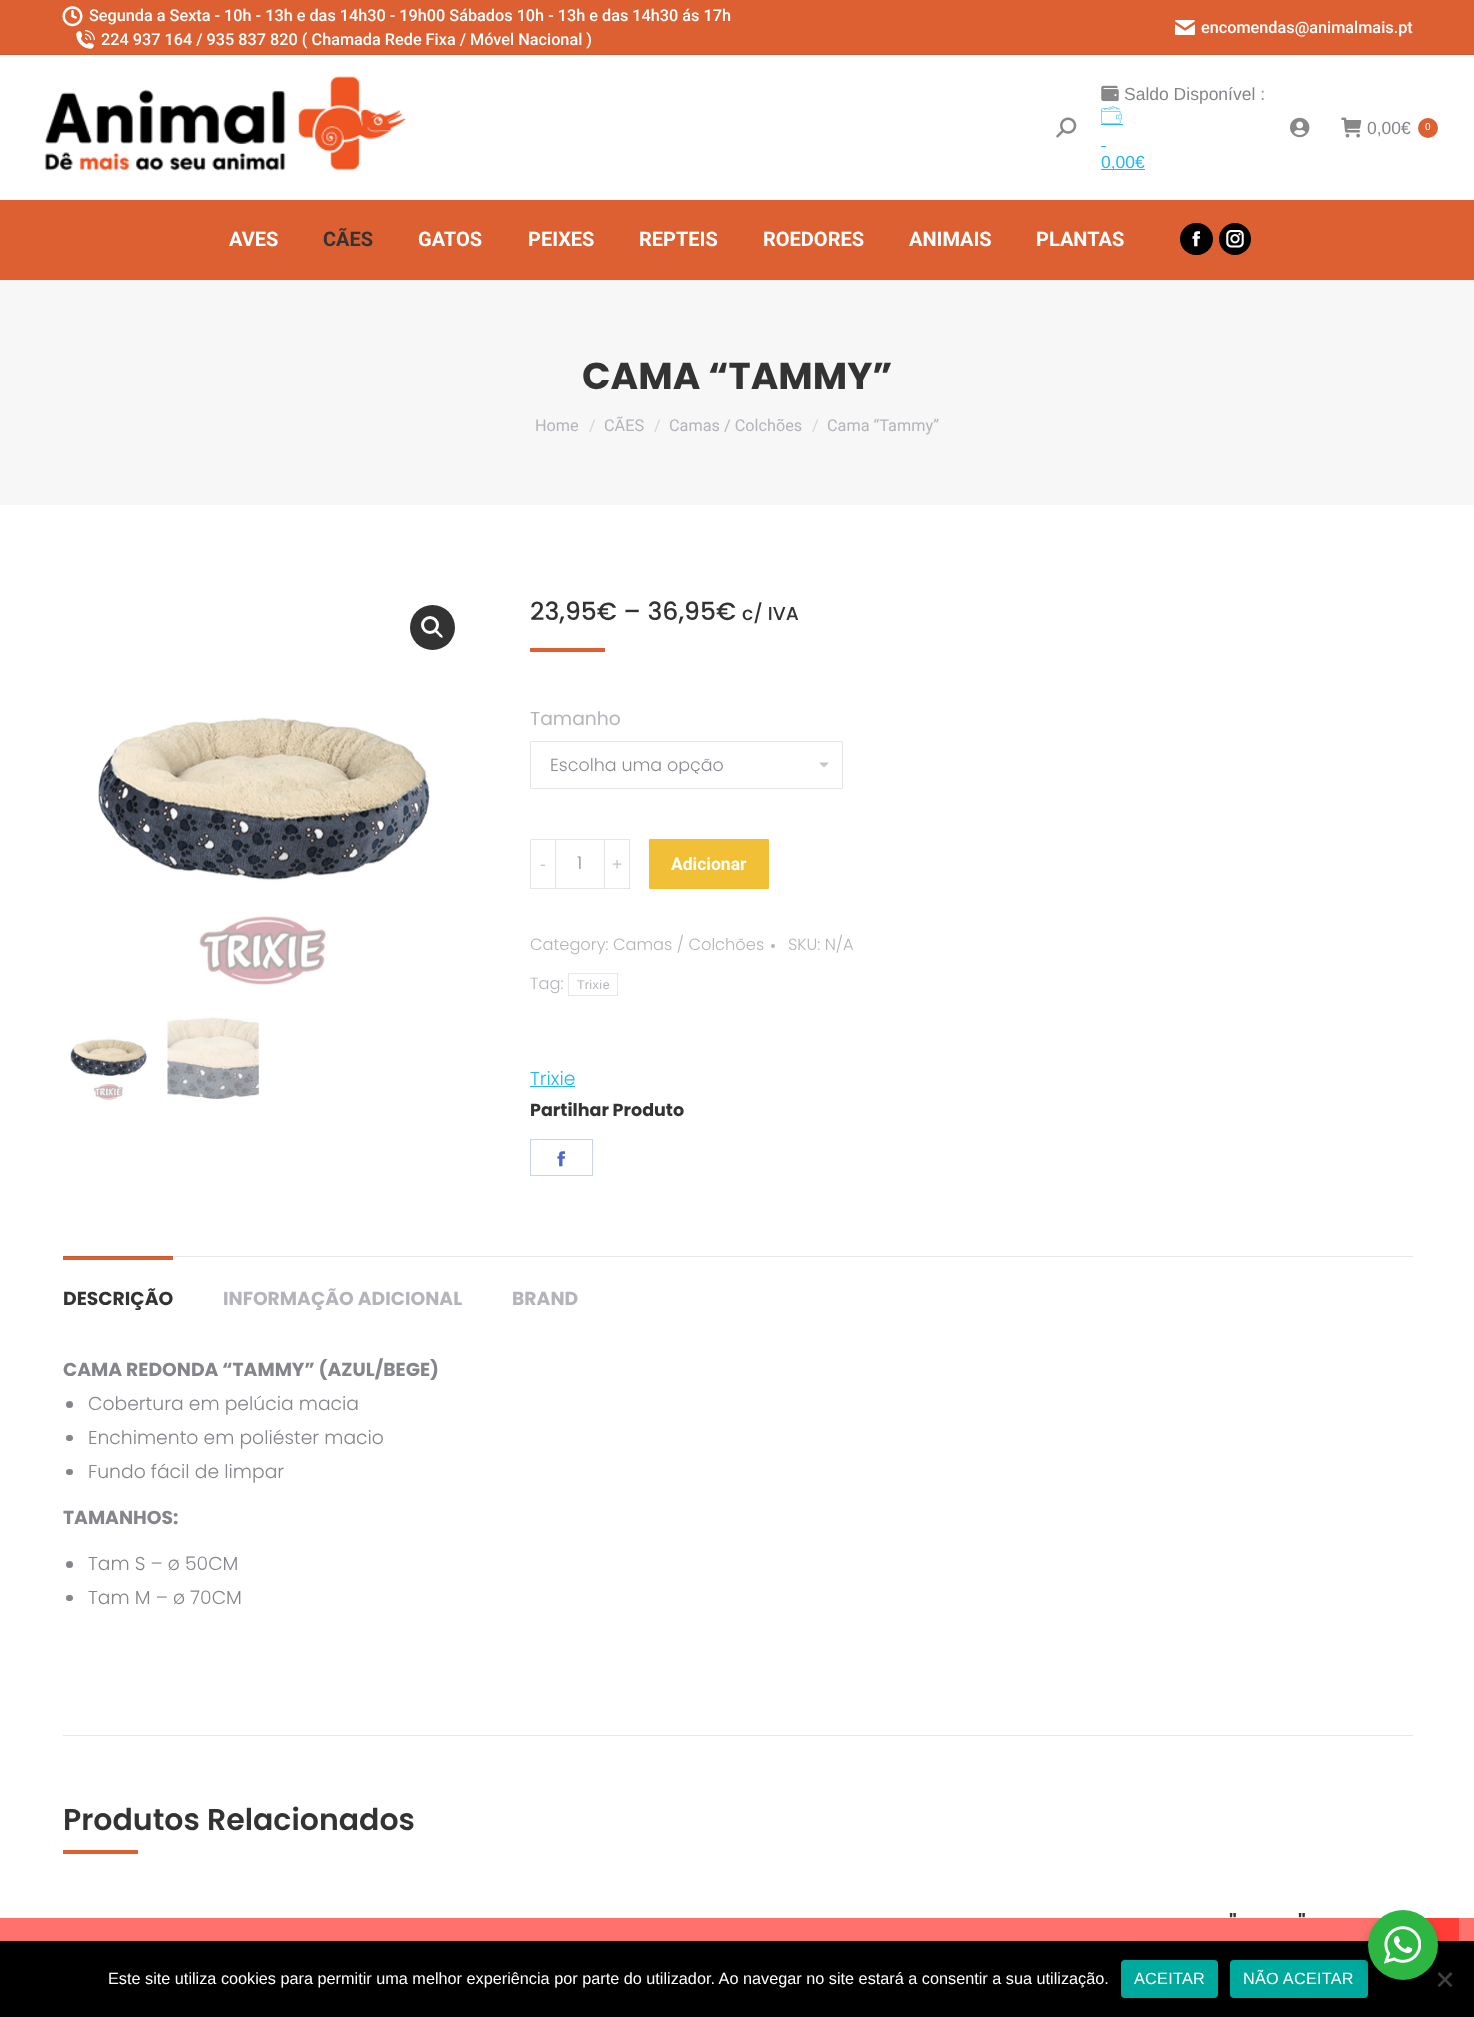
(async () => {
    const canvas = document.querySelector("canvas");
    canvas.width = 1474;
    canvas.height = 2017;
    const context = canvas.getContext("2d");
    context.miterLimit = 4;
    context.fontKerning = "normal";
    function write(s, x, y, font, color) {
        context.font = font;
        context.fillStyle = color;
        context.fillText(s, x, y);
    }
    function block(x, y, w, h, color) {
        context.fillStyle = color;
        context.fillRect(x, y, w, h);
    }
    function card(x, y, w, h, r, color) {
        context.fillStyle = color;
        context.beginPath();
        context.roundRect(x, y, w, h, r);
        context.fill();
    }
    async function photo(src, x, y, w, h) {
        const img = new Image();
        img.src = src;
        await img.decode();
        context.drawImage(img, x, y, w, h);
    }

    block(0, 0, 1474, 2017, "rgb(255, 255, 255)");
    block(0, 0, 1474, 54, "rgb(221, 96, 51)");
    await photo("media/1.png", 62, 6, 21, 21);
    write("Segunda a Sexta - 10h - 13h e das 14h30 - 19h00 Sábados 10h - 13h e das 14h30 ás 17h", 89, 21, "500 16.25px Roboto", "rgb(255, 255, 255)");
    await photo("media/2.png", 76, 30, 19, 19);
    write("224 937 164 / 935 837 820 ( Chamada Rede Fixa / Móvel Nacional )", 101, 45, "500 16.25px Roboto", "rgb(255, 255, 255)");
    await photo("media/3.png", 1175, 20, 20, 15);
    write("encomendas@animalmais.pt", 1201, 33, "500 16.25px Roboto", "rgb(255, 255, 255)");
    block(0, 54, 1474, 1, "rgb(202, 91, 51)");
    await photo("media/4.png", 44, 76, 362, 95);
    await photo("media/5.png", 1056, 117, 21, 21);
    await photo("media/6.png", 1101, 85, 18, 17);
    write("Saldo Disponível :", 1124, 100, "17.5px Liberation Sans", "rgb(133, 134, 140)");
    await photo("media/7.png", 1101, 106, 22, 18);
    block(1101, 169, 44, 1, "rgb(30, 187, 240)");
    write("0,00€", 1101, 168, "17.5px Liberation Sans", "rgb(30, 187, 240)");
    block(1101, 124, 22, 1, "rgb(30, 187, 240)");
    block(1101, 146, 5, 1, "rgb(30, 187, 240)");
    await photo("media/8.png", 1290, 117, 20, 21);
    await photo("media/9.png", 1341, 117, 21, 21);
    write("0,00€", 1367, 134, "17.5px Liberation Sans", "rgb(133, 134, 140)");
    context.fillStyle = "rgb(221, 96, 51)";
    context.beginPath();
    context.arc(1428, 128, 10, 0, Math.PI * 2);
    context.fill();
    write("0", 1425, 130, "10px Liberation Sans", "rgb(255, 255, 255)");
    block(0, 200, 1474, 80, "rgb(221, 96, 51)");
    write("AVES", 229, 246, "bold 20px Roboto", "rgb(255, 255, 255)");
    write("CÃES", 323, 246, "bold 20px Roboto", "rgb(51, 51, 51)");
    write("GATOS", 418, 246, "bold 20px Roboto", "rgb(255, 255, 255)");
    write("PEIXES", 528, 246, "bold 20px Roboto", "rgb(255, 255, 255)");
    write("REPTEIS", 639, 246, "bold 20px Roboto", "rgb(255, 255, 255)");
    write("ROEDORES", 763, 246, "bold 20px Roboto", "rgb(255, 255, 255)");
    write("ANIMAIS", 909, 246, "bold 20px Roboto", "rgb(255, 255, 255)");
    write("PLANTAS", 1036, 246, "bold 20px Roboto", "rgb(255, 255, 255)");
    card(1180, 223, 33, 32, 16, "rgb(0, 0, 0)");
    await photo("media/10.png", 1192, 231, 8, 16);
    context.beginPath();
    context.arc(1235, 239, 16, 0, Math.PI * 2);
    context.fill();
    await photo("media/11.png", 1226, 230, 18, 18);
    block(0, 280, 1474, 225, "rgb(247, 247, 247)");
    write("CAMA “TAMMY”", 582, 389, "bold 37.5px Poppins", "rgb(51, 51, 51)");
    write("Home", 535, 431, "16.25px Roboto", "rgb(180, 181, 187)");
    write("/", 589, 431, "16.25px Roboto", "rgb(214, 214, 217)");
    write("CÃES", 604, 431, "16.25px Roboto", "rgb(180, 181, 187)");
    write("/", 654, 431, "16.25px Roboto", "rgb(214, 214, 217)");
    write("Camas / Colchões", 669, 431, "16.25px Roboto", "rgb(180, 181, 187)");
    write("/", 812, 431, "16.25px Roboto", "rgb(214, 214, 217)");
    write("Cama “Tammy”", 827, 431, "16.25px Roboto", "rgb(180, 181, 187)");
    context.fillStyle = "rgb(51, 51, 51)";
    context.beginPath();
    context.arc(432.5, 627.5, 22.5, 0, Math.PI * 2);
    context.fill();
    context.beginPath();
    context.arc(430, 625, 7.5, 0, Math.PI * 2);
    context.strokeStyle = "rgb(255, 255, 255)";
    context.lineWidth = 3;
    context.stroke();
    context.fillStyle = "rgb(255, 255, 255)";
    context.beginPath();
    context.moveTo(435, 630);
    context.bezierCurveTo(436.5, 629, 439, 632, 439.5, 633);
    context.bezierCurveTo(440.5, 633.5, 443.5, 636, 442.5, 637.5);
    context.bezierCurveTo(441, 638.5, 438.5, 635.5, 438, 634.5);
    context.bezierCurveTo(437, 634, 434, 631.5, 435, 630);
    context.closePath();
    context.fill();
    await photo("media/12.png", 98, 717, 332, 268);
    await photo("media/13.png", 70, 1035, 77, 66);
    await photo("media/14.png", 167, 1016, 92, 83);
    write("23,95€ – 36,95€", 530, 620, "500 25px Poppins", "rgb(51, 51, 51)");
    write("c/ IVA", 742, 620, "500 18.75px Poppins", "rgb(51, 51, 51)");
    block(530, 648, 75, 4, "rgb(221, 96, 51)");
    write("Tamanho", 530, 725, "18.75px Poppins", "rgb(180, 181, 187)");
    context.fillStyle = "rgb(196, 197, 201)";
    context.beginPath();
    context.moveTo(819, 762.5);
    context.lineTo(824, 767.5);
    context.lineTo(829, 762.5);
    context.closePath();
    context.fill();
    context.beginPath();
    context.roundRect(530.5, 741.5, 312, 47, 0.5);
    context.strokeStyle = "rgb(229, 229, 229)";
    context.lineWidth = 1;
    context.stroke();
    context.save();
    context.beginPath();
    context.rect(550, 756, 254, 18);
    context.clip();
    write("Escolha uma opção", 550, 771, "300 17.5px Poppins", "rgb(139, 141, 148)");
    context.restore();
    block(531, 839, 24, 1, "rgb(229, 229, 229)");
    block(531, 888, 24, 1, "rgb(229, 229, 229)");
    block(530, 840, 1, 49, "rgb(229, 229, 229)");
    write("-", 540, 870, "17.5px Liberation Sans", "rgb(196, 197, 201)");
    context.strokeRect(555.5, 839.5, 49, 49);
    write("1", 577, 869, "300 17.5px Poppins", "rgb(139, 141, 148)");
    block(605, 839, 25, 1, "rgb(229, 229, 229)");
    block(629, 840, 1, 49, "rgb(229, 229, 229)");
    block(605, 888, 25, 1, "rgba(51, 51, 51, 0.12)");
    write("+", 612, 870, "17.5px Liberation Sans", "rgb(196, 197, 201)");
    card(649, 839, 120, 50, 1, "rgb(242, 192, 55)");
    write("Adicionar", 671, 870, "bold 17.5px Roboto", "rgb(255, 255, 255)");
    write("Category: Camas / Colchões", 530, 950, "300 16.25px Poppins", "rgb(180, 181, 187)");
    context.beginPath();
    context.arc(773, 946, 2, 0, Math.PI * 2);
    context.fill();
    write("SKU: N/A", 788, 950, "300 16.25px Poppins", "rgb(180, 181, 187)");
    write("Tag:", 530, 989, "300 16.25px Poppins", "rgb(180, 181, 187)");
    context.strokeStyle = "rgb(231, 231, 231)";
    context.strokeRect(568.5, 973.5, 49, 22);
    context.letterSpacing = "0.5px";
    write("Trixie", 577, 989, "12.5px Liberation Sans", "rgb(180, 181, 187)");
    context.letterSpacing = "0px";
    write("Trixie", 530, 1085, "300 18.75px Poppins", "rgb(30, 187, 240)");
    block(530, 1086, 45, 1, "rgb(30, 187, 240)");
    write("Partilhar Produto", 530, 1116, "bold 17.5px Poppins", "rgb(51, 51, 51)");
    context.strokeStyle = "rgb(201, 210, 238)";
    context.strokeRect(530.5, 1139.5, 62, 36);
    await photo("media/15.png", 557, 1151, 8, 16);
    block(63, 1256, 110, 4, "rgb(221, 96, 51)");
    block(63, 1256, 1350, 1, "rgba(51, 51, 51, 0.12)");
    write("DESCRIÇÃO", 63, 1305, "bold 18.75px Poppins", "rgb(51, 51, 51)");
    write("INFORMAÇÃO ADICIONAL", 223, 1305, "bold 18.75px Poppins", "rgb(180, 181, 187)");
    write("BRAND", 512, 1305, "bold 18.75px Poppins", "rgb(180, 181, 187)");
    write("CAMA REDONDA “TAMMY” (AZUL/BEGE)", 63, 1376, "bold 18.75px Poppins", "rgb(133, 134, 140)");
    context.beginPath();
    context.arc(69.5, 1404.5, 3.5, 0, Math.PI * 2);
    context.fill();
    write("Cobertura em pelúcia macia", 88, 1410, "300 18.75px Poppins", "rgb(133, 134, 140)");
    card(66, 1435, 7, 6, 3, "rgb(133, 134, 140)");
    write("Enchimento em poliéster macio", 88, 1444, "300 18.75px Poppins", "rgb(133, 134, 140)");
    card(66, 1469, 7, 6, 3, "rgb(133, 134, 140)");
    write("Fundo fácil de limpar", 88, 1478, "300 18.75px Poppins", "rgb(133, 134, 140)");
    write("TAMANHOS:", 63, 1524, "bold 18.75px Poppins", "rgb(133, 134, 140)");
    context.beginPath();
    context.arc(69.5, 1564.5, 3.5, 0, Math.PI * 2);
    context.fill();
    write("Tam S – ø 50CM", 88, 1570, "300 18.75px Poppins", "rgb(133, 134, 140)");
    card(66, 1595, 7, 6, 3, "rgb(133, 134, 140)");
    write("Tam M – ø 70CM", 88, 1604, "300 18.75px Poppins", "rgb(133, 134, 140)");
    block(63, 1735, 1350, 1, "rgb(231, 231, 231)");
    write("Produtos Relacionados", 63, 1830, "600 30px Poppins", "rgb(51, 51, 51)");
    block(63, 1850, 75, 4, "rgb(221, 96, 51)");
    write("\"", 1229, 1928, "bold 18.75px Poppins", "rgb(51, 51, 51)");
    write("\"", 1298, 1928, "bold 18.75px Poppins", "rgb(51, 51, 51)");
    block(0, 1918, 1474, 23, "rgb(255, 113, 109)");
    block(1425, 1918, 34, 23, "rgb(255, 60, 54)");
    block(0, 1941, 1474, 76, "rgb(0, 0, 0)");
    card(1230, 1960, 138, 38, 4, "rgb(0, 169, 157)");
    context.fillStyle = "rgb(64, 64, 64)";
    context.beginPath();
    context.moveTo(1450.5, 1972);
    context.lineTo(1452.5, 1974);
    context.lineTo(1439.5, 1987);
    context.lineTo(1437.5, 1985.5);
    context.closePath();
    context.fill();
    context.beginPath();
    context.moveTo(1437.5, 1974);
    context.lineTo(1439.5, 1972);
    context.lineTo(1452.5, 1985.5);
    context.lineTo(1450.5, 1987);
    context.closePath();
    context.fill();
    context.fillStyle = "rgba(0, 0, 0, 0.14)";
    context.filter = "blur(5px)";
    context.beginPath();
    context.roundRect(1365, 1915, 75, 75, 37.5);
    context.fill();
    context.filter = "none";
    context.fillStyle = "rgb(45, 183, 66)";
    context.beginPath();
    context.arc(1403, 1945, 35, 0, Math.PI * 2);
    context.fill();
    await photo("media/16.png", 1384, 1926, 37, 38);
    write("Este site utiliza cookies para permitir uma melhor experiência por parte do utilizador. Ao navegar no site estará a consentir a sua utilização.", 108, 1984, "16.25px Liberation Sans", "rgb(255, 255, 255)");
    card(1121, 1960, 97, 38, 4, "rgb(0, 169, 157)");
    context.letterSpacing = "0.25px";
    write("ACEITAR", 1134, 1984, "16.25px Liberation Sans", "rgb(255, 255, 255)");
    write("NÃO ACEITAR", 1243, 1984, "16.25px Liberation Sans", "rgb(255, 255, 255)");
})();
